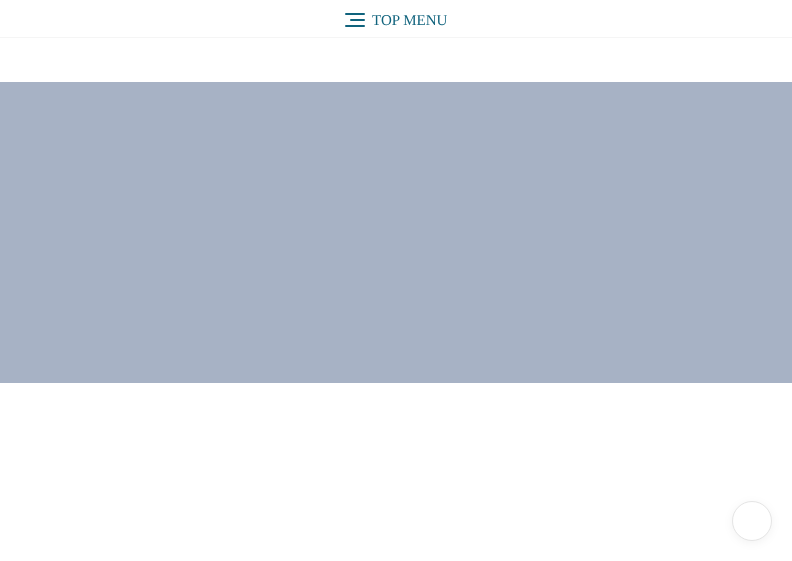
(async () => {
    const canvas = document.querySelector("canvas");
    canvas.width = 792;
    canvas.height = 561;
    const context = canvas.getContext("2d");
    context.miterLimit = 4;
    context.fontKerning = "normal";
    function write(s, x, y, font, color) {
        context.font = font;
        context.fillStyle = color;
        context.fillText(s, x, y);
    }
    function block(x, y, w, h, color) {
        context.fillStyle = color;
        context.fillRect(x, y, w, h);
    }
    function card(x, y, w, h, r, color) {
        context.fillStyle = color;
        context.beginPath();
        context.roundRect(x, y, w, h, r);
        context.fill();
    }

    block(0, 0, 792, 561, "rgb(255, 255, 255)");
    block(0, 37, 792, 1, "rgb(245, 245, 245)");
    card(350, 19, 15, 2, 1, "rgb(16, 99, 125)");
    card(345, 13, 20, 2, 1, "rgb(16, 99, 125)");
    card(345, 25, 20, 2, 1, "rgb(16, 99, 125)");
    write("TOP MENU", 372, 25, "15px Liberation Serif", "rgb(16, 99, 125)");
    block(0, 82, 792, 301, "rgb(167, 178, 197)");
    context.fillStyle = "rgba(0, 0, 0, 0.05)";
    context.filter = "blur(4px)";
    context.beginPath();
    context.roundRect(732, 503, 40, 40, 20);
    context.fill();
    context.filter = "none";
    context.fillStyle = "rgb(255, 255, 255)";
    context.beginPath();
    context.arc(752, 521, 19.5, 0, Math.PI * 2);
    context.fill();
    context.strokeStyle = "rgb(229, 229, 229)";
    context.stroke();
})();
